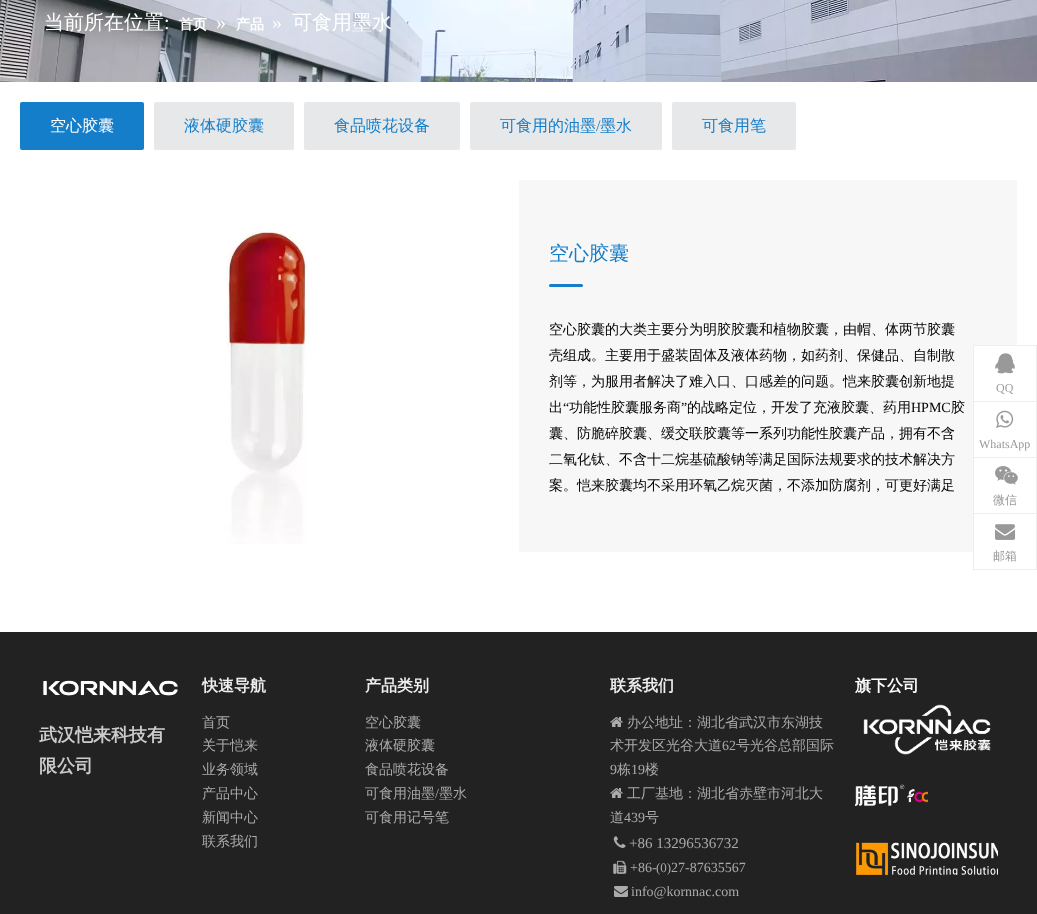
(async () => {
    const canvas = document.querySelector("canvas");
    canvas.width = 1037;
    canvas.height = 914;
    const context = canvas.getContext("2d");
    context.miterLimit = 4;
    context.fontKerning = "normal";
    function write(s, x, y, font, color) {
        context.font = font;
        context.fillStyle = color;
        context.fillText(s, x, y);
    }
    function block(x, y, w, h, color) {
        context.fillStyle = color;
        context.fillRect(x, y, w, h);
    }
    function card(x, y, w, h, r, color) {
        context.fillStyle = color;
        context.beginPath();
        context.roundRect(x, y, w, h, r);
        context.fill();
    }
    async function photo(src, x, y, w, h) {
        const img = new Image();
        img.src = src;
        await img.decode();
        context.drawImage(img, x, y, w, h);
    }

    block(0, 0, 1037, 914, "rgb(255, 255, 255)");
    await photo("media/1.png", 0, 0, 1037, 82);
    write("当前所在位置", 44, 29, "500 20px WenQuanYi Zen Hei", "rgb(255, 255, 255)");
    write(":", 164, 29, "20px Liberation Serif", "rgb(255, 255, 255)");
    write("首页", 179, 29, "bold 14px WenQuanYi Zen Hei", "rgb(255, 255, 255)");
    write("»", 216, 29, "20px Liberation Serif", "rgb(255, 255, 255)");
    write("产品", 236, 29, "bold 14px WenQuanYi Zen Hei", "rgb(255, 255, 255)");
    write("»", 272, 29, "20px Liberation Serif", "rgb(255, 255, 255)");
    write("可食用墨水", 292, 29, "500 20px WenQuanYi Zen Hei", "rgb(255, 255, 255)");
    card(20, 102, 124, 48, 2, "rgb(21, 126, 203)");
    write("空心胶囊", 50, 131, "500 16px WenQuanYi Zen Hei", "rgb(255, 255, 255)");
    card(154, 102, 140, 48, 2, "rgb(230, 232, 233)");
    write("液体硬胶囊", 184, 131, "500 16px WenQuanYi Zen Hei", "rgb(21, 126, 203)");
    card(304, 102, 156, 48, 2, "rgb(230, 232, 233)");
    write("食品喷花设备", 334, 131, "500 16px WenQuanYi Zen Hei", "rgb(21, 126, 203)");
    card(470, 102, 192, 48, 2, "rgb(230, 232, 233)");
    write("可食用的油墨", 500, 131, "500 16px WenQuanYi Zen Hei", "rgb(21, 126, 203)");
    write("/", 596, 131, "16px Liberation Serif", "rgb(21, 126, 203)");
    write("墨水", 600, 131, "500 16px WenQuanYi Zen Hei", "rgb(21, 126, 203)");
    card(672, 102, 124, 48, 2, "rgb(230, 232, 233)");
    write("可食用笔", 702, 131, "500 16px WenQuanYi Zen Hei", "rgb(21, 126, 203)");
    await photo("media/2.png", 226, 230, 81, 314);
    block(519, 180, 498, 372, "rgb(247, 247, 247)");
    write("空心胶囊", 549, 260, "500 20px WenQuanYi Zen Hei", "rgb(21, 126, 203)");
    card(549, 284, 34, 3, 1.5, "rgb(21, 126, 203)");
    write("空心胶囊的大类主要分为明胶胶囊和植物胶囊，由帽、体两节胶囊", 549, 334, "500 14px WenQuanYi Zen Hei", "rgb(0, 0, 0)");
    write("壳组成。主要用于盛装固体及液体药物，如药剂、保健品、自制散", 549, 360, "500 14px WenQuanYi Zen Hei", "rgb(0, 0, 0)");
    write("剂等，为服用者解决了难入口、口感差的问题。恺来胶囊创新地提", 549, 386, "500 14px WenQuanYi Zen Hei", "rgb(0, 0, 0)");
    write("出", 549, 412, "500 14px WenQuanYi Zen Hei", "rgb(0, 0, 0)");
    write("“", 563, 412, "14px Liberation Serif", "rgb(0, 0, 0)");
    write("功能性胶囊服务商", 569, 412, "500 14px WenQuanYi Zen Hei", "rgb(0, 0, 0)");
    write("”", 681, 412, "14px Liberation Serif", "rgb(0, 0, 0)");
    write("的战略定位，开发了充液胶囊、药用", 687, 412, "500 14px WenQuanYi Zen Hei", "rgb(0, 0, 0)");
    write("HPMC", 911, 412, "14px Liberation Serif", "rgb(0, 0, 0)");
    write("胶", 951, 412, "500 14px WenQuanYi Zen Hei", "rgb(0, 0, 0)");
    write("囊、防脆碎胶囊、缓交联胶囊等一系列功能性胶囊产品，拥有不含", 549, 438, "500 14px WenQuanYi Zen Hei", "rgb(0, 0, 0)");
    write("二氧化钛、不含十二烷基硫酸钠等满足国际法规要求的技术解决方", 549, 464, "500 14px WenQuanYi Zen Hei", "rgb(0, 0, 0)");
    write("案。恺来胶囊均不采用环氧乙烷灭菌，不添加防腐剂，可更好满足", 549, 490, "500 14px WenQuanYi Zen Hei", "rgb(0, 0, 0)");
    block(0, 632, 1037, 282, "rgb(34, 34, 34)");
    block(974, 346, 43, 55, "rgb(255, 255, 255)");
    block(973, 345, 64, 1, "rgb(238, 238, 238)");
    block(1036, 345, 1, 56, "rgb(238, 238, 238)");
    block(973, 345, 1, 56, "rgb(238, 238, 238)");
    await photo("media/3.png", 995, 353, 20, 21);
    write("QQ", 996, 392, "12px Liberation Serif", "rgb(153, 153, 153)");
    block(974, 402, 43, 55, "rgb(255, 255, 255)");
    block(973, 401, 64, 1, "rgb(238, 238, 238)");
    block(1036, 401, 1, 56, "rgb(238, 238, 238)");
    block(973, 401, 1, 56, "rgb(238, 238, 238)");
    await photo("media/4.png", 996, 410, 18, 18);
    write("WhatsApp", 979, 448, "12px Liberation Serif", "rgb(153, 153, 153)");
    block(974, 458, 43, 55, "rgb(255, 255, 255)");
    block(973, 457, 64, 1, "rgb(238, 238, 238)");
    block(1036, 457, 1, 56, "rgb(238, 238, 238)");
    block(973, 457, 1, 56, "rgb(238, 238, 238)");
    await photo("media/5.png", 995, 466, 23, 19);
    write("微信", 993, 504, "500 12px WenQuanYi Zen Hei", "rgb(153, 153, 153)");
    block(974, 514, 43, 38, "rgb(255, 255, 255)");
    context.strokeStyle = "rgb(238, 238, 238)";
    context.strokeRect(973.5, 513.5, 63, 56);
    await photo("media/6.png", 995, 524, 20, 16);
    write("邮箱", 993, 560, "500 12px WenQuanYi Zen Hei", "rgb(153, 153, 153)");
    write("快速导航", 202, 691, "bold 16px WenQuanYi Zen Hei", "rgb(238, 238, 238)");
    write("首页", 202, 727, "500 14px WenQuanYi Zen Hei", "rgb(170, 170, 170)");
    write("关于恺来", 202, 750, "500 14px WenQuanYi Zen Hei", "rgb(170, 170, 170)");
    write("业务领域", 202, 774, "500 14px WenQuanYi Zen Hei", "rgb(170, 170, 170)");
    write("产品中心", 202, 798, "500 14px WenQuanYi Zen Hei", "rgb(170, 170, 170)");
    write("新闻中心", 202, 822, "500 14px WenQuanYi Zen Hei", "rgb(170, 170, 170)");
    write("联系我们", 202, 846, "500 14px WenQuanYi Zen Hei", "rgb(170, 170, 170)");
    write("产品类别", 365, 691, "bold 16px WenQuanYi Zen Hei", "rgb(238, 238, 238)");
    write("空心胶囊", 365, 727, "500 14px WenQuanYi Zen Hei", "rgb(170, 170, 170)");
    write("液体硬胶囊", 365, 750, "500 14px WenQuanYi Zen Hei", "rgb(170, 170, 170)");
    write("食品喷花设备", 365, 774, "500 14px WenQuanYi Zen Hei", "rgb(170, 170, 170)");
    write("可食用油墨", 365, 798, "500 14px WenQuanYi Zen Hei", "rgb(170, 170, 170)");
    write("/", 435, 798, "14px Liberation Serif", "rgb(170, 170, 170)");
    write("墨水", 439, 798, "500 14px WenQuanYi Zen Hei", "rgb(170, 170, 170)");
    write("可食用记号笔", 365, 822, "500 14px WenQuanYi Zen Hei", "rgb(170, 170, 170)");
    write("联系我们", 610, 691, "bold 16px WenQuanYi Zen Hei", "rgb(238, 238, 238)");
    await photo("media/7.png", 610, 717, 13, 10);
    write("办公地址：湖北省武汉市东湖技", 627, 727, "500 14px WenQuanYi Zen Hei", "rgb(170, 170, 170)");
    write("术开发区光谷大道", 610, 750, "500 14px WenQuanYi Zen Hei", "rgb(170, 170, 170)");
    write("62", 722, 750, "14px Liberation Serif", "rgb(170, 170, 170)");
    write("号光谷总部国际", 736, 750, "500 14px WenQuanYi Zen Hei", "rgb(170, 170, 170)");
    write("9", 610, 774, "14px Liberation Serif", "rgb(170, 170, 170)");
    write("栋", 617, 774, "500 14px WenQuanYi Zen Hei", "rgb(170, 170, 170)");
    write("19", 631, 774, "14px Liberation Serif", "rgb(170, 170, 170)");
    write("楼", 645, 774, "500 14px WenQuanYi Zen Hei", "rgb(170, 170, 170)");
    await photo("media/7.png", 610, 788, 13, 10);
    write("工厂基地：湖北省赤壁市河北大", 627, 798, "500 14px WenQuanYi Zen Hei", "rgb(170, 170, 170)");
    write("道", 610, 822, "500 14px WenQuanYi Zen Hei", "rgb(170, 170, 170)");
    write("439", 624, 822, "14px Liberation Serif", "rgb(170, 170, 170)");
    write("号", 645, 822, "500 14px WenQuanYi Zen Hei", "rgb(170, 170, 170)");
    await photo("media/8.png", 613, 836, 13, 12);
    write("+86 13296536732", 629, 848, "15px Liberation Serif", "rgb(170, 170, 170)");
    await photo("media/9.png", 613, 860, 14, 14);
    write("+86-", 630, 872, "14px Liberation Serif", "rgb(170, 170, 170)");
    write("(0)", 656, 872, "13px Liberation Serif", "rgb(170, 170, 170)");
    write("27-87635567", 671, 872, "14px Liberation Serif", "rgb(170, 170, 170)");
    await photo("media/10.png", 614, 886, 14, 11);
    write("info@kornnac.com", 631, 896, "14px Liberation Serif", "rgb(170, 170, 170)");
    write("旗下公司", 855, 691, "bold 16px WenQuanYi Zen Hei", "rgb(255, 255, 255)");
    await photo("media/11.png", 863, 704, 128, 51);
    await photo("media/12.png", 855, 784, 73, 23);
    await photo("media/13.png", 856, 842, 142, 33);
    await photo("media/14.png", 43, 680, 135, 16);
    write("武汉恺来科技有", 39, 741, "bold 18px WenQuanYi Zen Hei", "rgb(204, 204, 204)");
    write("限公司", 39, 772, "bold 18px WenQuanYi Zen Hei", "rgb(204, 204, 204)");
})();
